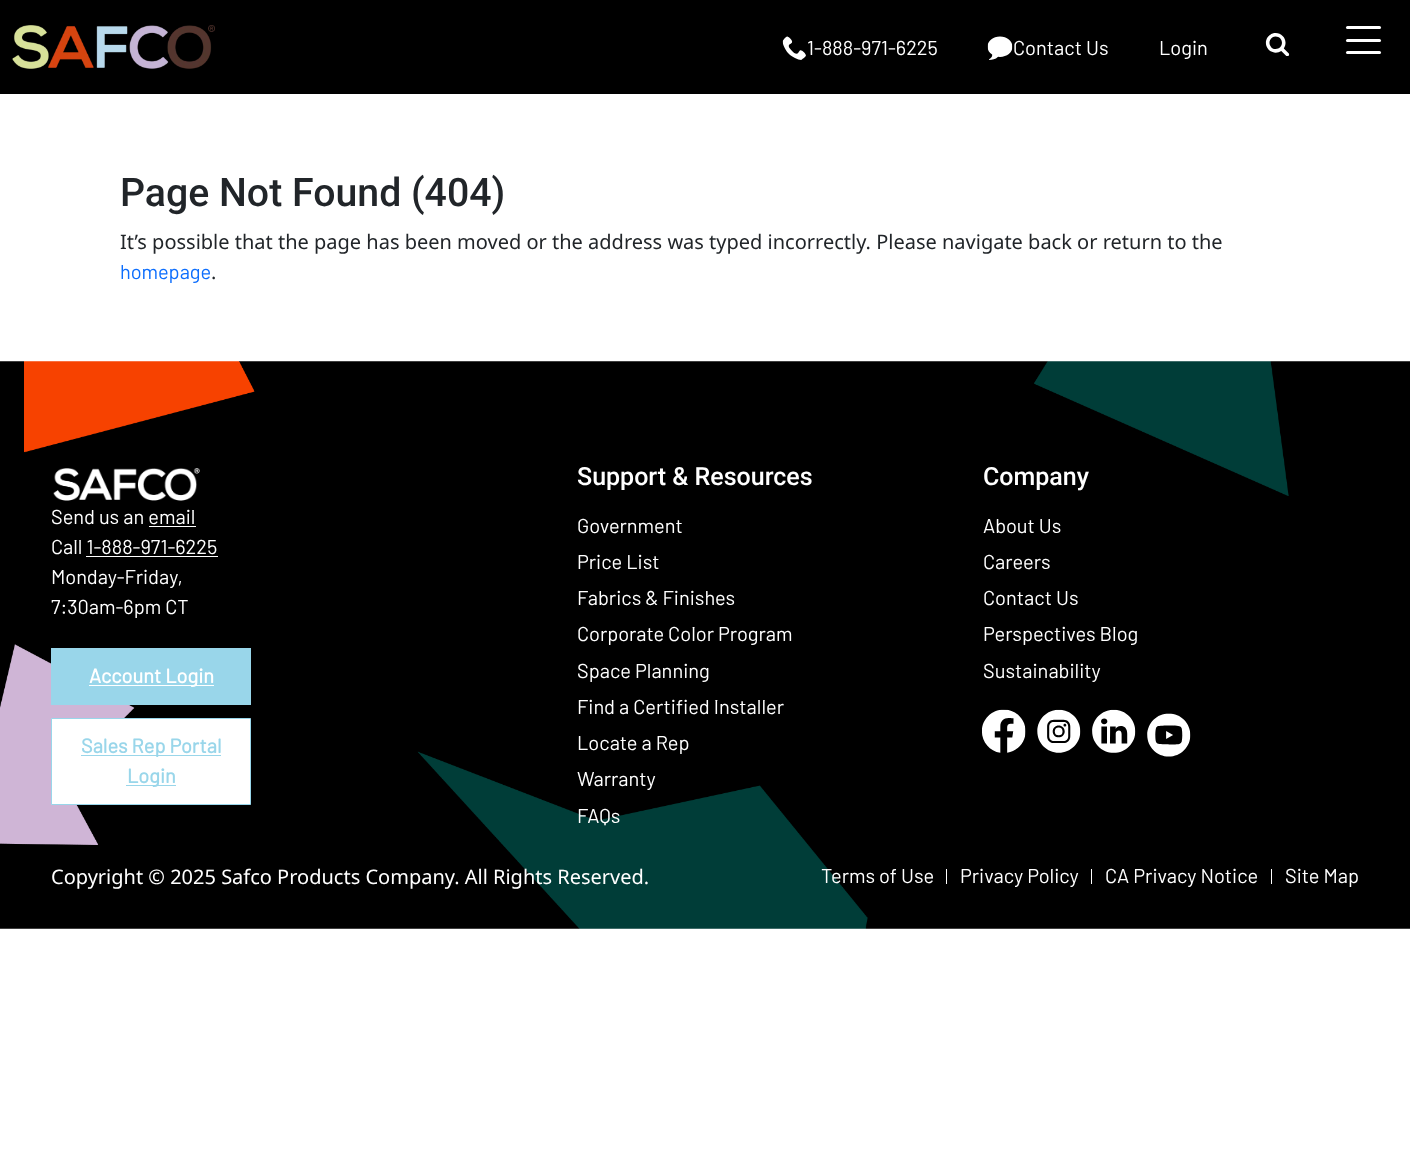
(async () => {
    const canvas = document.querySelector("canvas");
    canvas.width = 1410;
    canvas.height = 1159;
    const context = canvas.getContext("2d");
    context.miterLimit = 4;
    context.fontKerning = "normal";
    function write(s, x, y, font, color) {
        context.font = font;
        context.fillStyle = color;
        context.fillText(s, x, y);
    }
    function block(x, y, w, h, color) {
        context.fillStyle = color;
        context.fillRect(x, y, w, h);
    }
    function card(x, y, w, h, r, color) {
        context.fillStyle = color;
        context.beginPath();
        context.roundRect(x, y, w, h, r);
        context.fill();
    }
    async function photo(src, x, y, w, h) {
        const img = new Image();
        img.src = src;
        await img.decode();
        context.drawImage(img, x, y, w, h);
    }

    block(0, 0, 1410, 1159, "rgb(255, 255, 255)");
    block(0, 0, 1410, 94, "rgb(0, 0, 0)");
    await photo("media/1.png", 12, 25, 203, 44);
    await photo("media/2.png", 782, 36, 24, 24);
    write("1-888-971-6225", 807, 55, "20px Barlow", "rgb(255, 255, 255)");
    await photo("media/3.png", 987, 36, 26, 24);
    write("Contact Us", 1013, 55, "20px Barlow", "rgb(255, 255, 255)");
    write("Login", 1159, 55, "20px Barlow", "rgb(255, 255, 255)");
    await photo("media/4.png", 1265, 33, 25, 23);
    card(1346, 39, 35, 3, 1.5, "rgb(255, 255, 255)");
    card(1346, 26, 35, 3, 1.5, "rgb(255, 255, 255)");
    card(1346, 51, 35, 3, 1.5, "rgb(255, 255, 255)");
    write("Page Not Found (404)", 120, 206, "500 39.25px Roboto", "rgb(33, 37, 41)");
    write("It’s possible that the page has been moved or the address was typed incorrectly. Please navigate back or return to the", 120, 249, "20px Noto Sans", "rgb(33, 37, 41)");
    write("homepage", 120, 279, "20px Barlow", "rgb(13, 110, 253)");
    write(".", 211, 279, "20px Noto Sans", "rgb(33, 37, 41)");
    await photo("media/5.png", 0, 361, 1410, 568);
    await photo("media/6.png", 53, 468, 147, 33);
    write("Send us an email", 51, 524, "20px Barlow", "rgb(255, 255, 255)");
    block(149, 526, 47, 1, "rgb(255, 255, 255)");
    write("Call 1-888-971-6225", 51, 554, "20px Barlow", "rgb(255, 255, 255)");
    block(86, 556, 132, 1, "rgb(255, 255, 255)");
    write("Monday-Friday,", 51, 584, "20px Barlow", "rgb(255, 255, 255)");
    write("7:30am-6pm CT", 51, 614, "20px Barlow", "rgb(255, 255, 255)");
    block(51, 648, 200, 57, "rgb(153, 214, 234)");
    block(89, 685, 125, 1, "rgb(255, 255, 255)");
    write("Account Login", 89, 683, "bold 20px Barlow", "rgb(255, 255, 255)");
    context.beginPath();
    context.rect(51.5, 718.5, 199, 86);
    context.fill();
    context.strokeStyle = "rgb(153, 214, 234)";
    context.stroke();
    block(81, 755, 140, 1, "rgb(153, 214, 234)");
    write("Sales Rep Portal", 81, 753, "bold 20px Barlow", "rgb(153, 214, 234)");
    block(126, 785, 50, 1, "rgb(153, 214, 234)");
    write("Login", 127, 783, "bold 20px Barlow", "rgb(153, 214, 234)");
    write("Support & Resources", 577, 485, "500 25px Roboto", "rgb(255, 255, 255)");
    write("Government", 577, 533, "20px Barlow", "rgb(255, 255, 255)");
    write("Price List", 577, 569, "20px Barlow", "rgb(255, 255, 255)");
    write("Fabrics & Finishes", 577, 605, "20px Barlow", "rgb(255, 255, 255)");
    write("Corporate Color Program", 577, 641, "20px Barlow", "rgb(255, 255, 255)");
    write("Space Planning", 577, 678, "20px Barlow", "rgb(255, 255, 255)");
    write("Find a Certified Installer", 577, 714, "20px Barlow", "rgb(255, 255, 255)");
    write("Locate a Rep", 577, 750, "20px Barlow", "rgb(255, 255, 255)");
    write("Warranty", 577, 786, "20px Barlow", "rgb(255, 255, 255)");
    write("FAQs", 577, 823, "20px Barlow", "rgb(255, 255, 255)");
    write("Company", 983, 485, "500 25px Roboto", "rgb(255, 255, 255)");
    write("About Us", 983, 533, "20px Barlow", "rgb(255, 255, 255)");
    write("Careers", 983, 569, "20px Barlow", "rgb(255, 255, 255)");
    write("Contact Us", 983, 605, "20px Barlow", "rgb(255, 255, 255)");
    write("Perspectives Blog", 983, 641, "20px Barlow", "rgb(255, 255, 255)");
    write("Sustainability", 983, 678, "20px Barlow", "rgb(255, 255, 255)");
    await photo("media/7.png", 982, 709, 44, 44);
    await photo("media/8.png", 1037, 709, 44, 44);
    await photo("media/9.png", 1092, 709, 44, 44);
    await photo("media/10.png", 1147, 713, 44, 44);
    write("Copyright © 2025 Safco Products Company. All Rights Reserved.", 51, 884, "20px Noto Sans", "rgb(255, 255, 255)");
    block(946, 869, 1, 15, "rgb(255, 255, 255)");
    write("Terms of Use", 821, 883, "20px Barlow", "rgb(255, 255, 255)");
    block(1091, 869, 1, 15, "rgb(255, 255, 255)");
    write("Privacy Policy", 960, 883, "20px Barlow", "rgb(255, 255, 255)");
    block(1271, 869, 1, 15, "rgb(255, 255, 255)");
    write("CA Privacy Notice", 1105, 883, "20px Barlow", "rgb(255, 255, 255)");
    write("Site Map", 1285, 883, "20px Barlow", "rgb(255, 255, 255)");
})();
